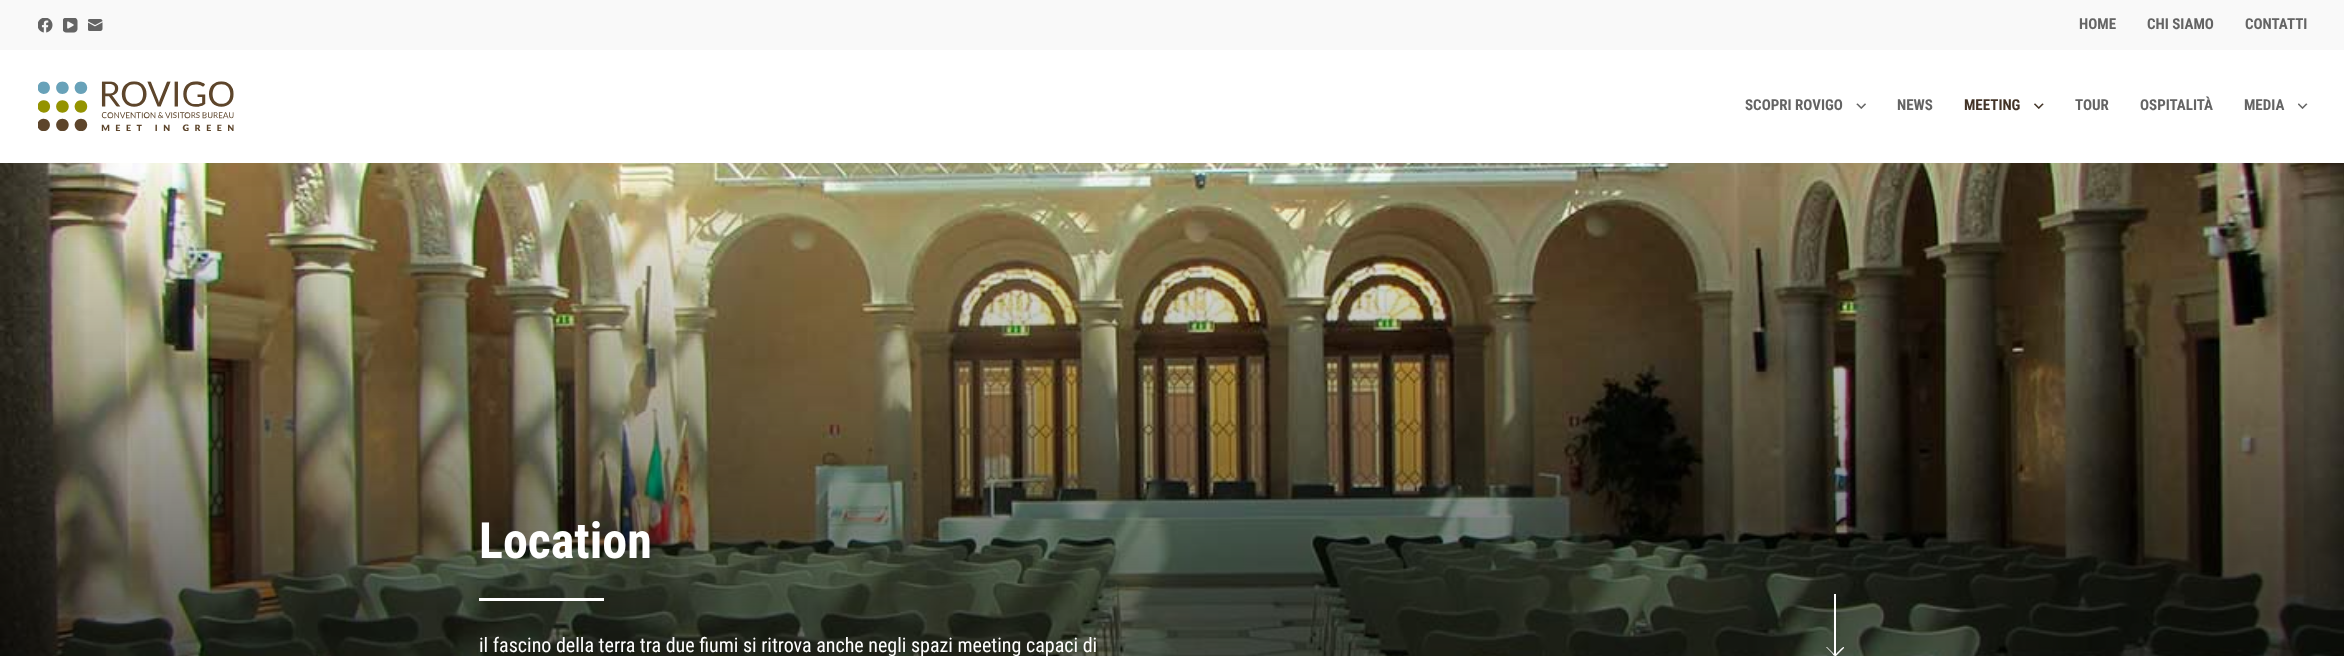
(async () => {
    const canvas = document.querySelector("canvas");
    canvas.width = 2344;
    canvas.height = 656;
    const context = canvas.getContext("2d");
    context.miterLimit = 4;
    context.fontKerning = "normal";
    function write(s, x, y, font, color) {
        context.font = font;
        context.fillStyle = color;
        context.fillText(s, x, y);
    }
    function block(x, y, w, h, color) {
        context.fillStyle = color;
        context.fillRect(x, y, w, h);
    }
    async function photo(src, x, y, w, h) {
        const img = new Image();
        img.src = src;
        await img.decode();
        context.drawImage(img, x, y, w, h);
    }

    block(0, 0, 2344, 656, "rgb(255, 255, 255)");
    block(0, 0, 2344, 50, "rgb(249, 249, 249)");
    await photo("media/1.png", 38, 18, 15, 15);
    await photo("media/2.png", 63, 18, 15, 15);
    await photo("media/3.png", 88, 19, 15, 12);
    write("HOME", 2079, 29, "bold 15px Roboto Condensed", "rgb(100, 100, 100)");
    write("CHI SIAMO", 2147, 29, "bold 15px Roboto Condensed", "rgb(100, 100, 100)");
    write("CONTATTI", 2245, 29, "bold 15px Roboto Condensed", "rgb(100, 100, 100)");
    await photo("media/4.png", 38, 81, 196, 50);
    write("SCOPRI ROVIGO", 1745, 110, "bold 15px Roboto Condensed", "rgb(100, 100, 100)");
    await photo("media/5.png", 1856, 103, 10, 6);
    write("NEWS", 1897, 110, "bold 15px Roboto Condensed", "rgb(100, 100, 100)");
    write("MEETING", 1964, 110, "bold 15px Roboto Condensed", "rgb(67, 52, 39)");
    await photo("media/6.png", 2034, 103, 10, 6);
    write("TOUR", 2075, 110, "bold 15px Roboto Condensed", "rgb(100, 100, 100)");
    write("OSPITALITÀ", 2140, 110, "bold 15px Roboto Condensed", "rgb(100, 100, 100)");
    write("MEDIA", 2244, 110, "bold 15px Roboto Condensed", "rgb(100, 100, 100)");
    await photo("media/7.png", 2298, 103, 10, 6);
    await photo("media/8.png", 0, 163, 2344, 493);
    write("Location", 479, 558, "bold 50px Roboto Condensed", "rgb(255, 255, 255)");
    block(479, 598, 125, 3, "rgb(255, 255, 255)");
    write("il fascino della terra tra due fiumi si ritrova anche negli spazi meeting capaci di", 479, 652, "20px Roboto Condensed", "rgb(255, 255, 255)");
    context.beginPath();
    context.moveTo(1844, 647);
    context.bezierCurveTo(1843, 646, 1837, 653, 1836, 654);
    context.lineTo(1836, 594);
    context.bezierCurveTo(1836, 594, 1834, 594, 1834, 594);
    context.lineTo(1834, 654);
    context.lineTo(1827, 647);
    context.lineTo(1826, 647);
    context.lineTo(1827, 648);
    context.lineTo(1832, 653);
    context.bezierCurveTo(1834, 656, 1834, 656, 1836, 656);
    context.lineTo(1844, 648);
    context.closePath();
    context.fill();
})();
